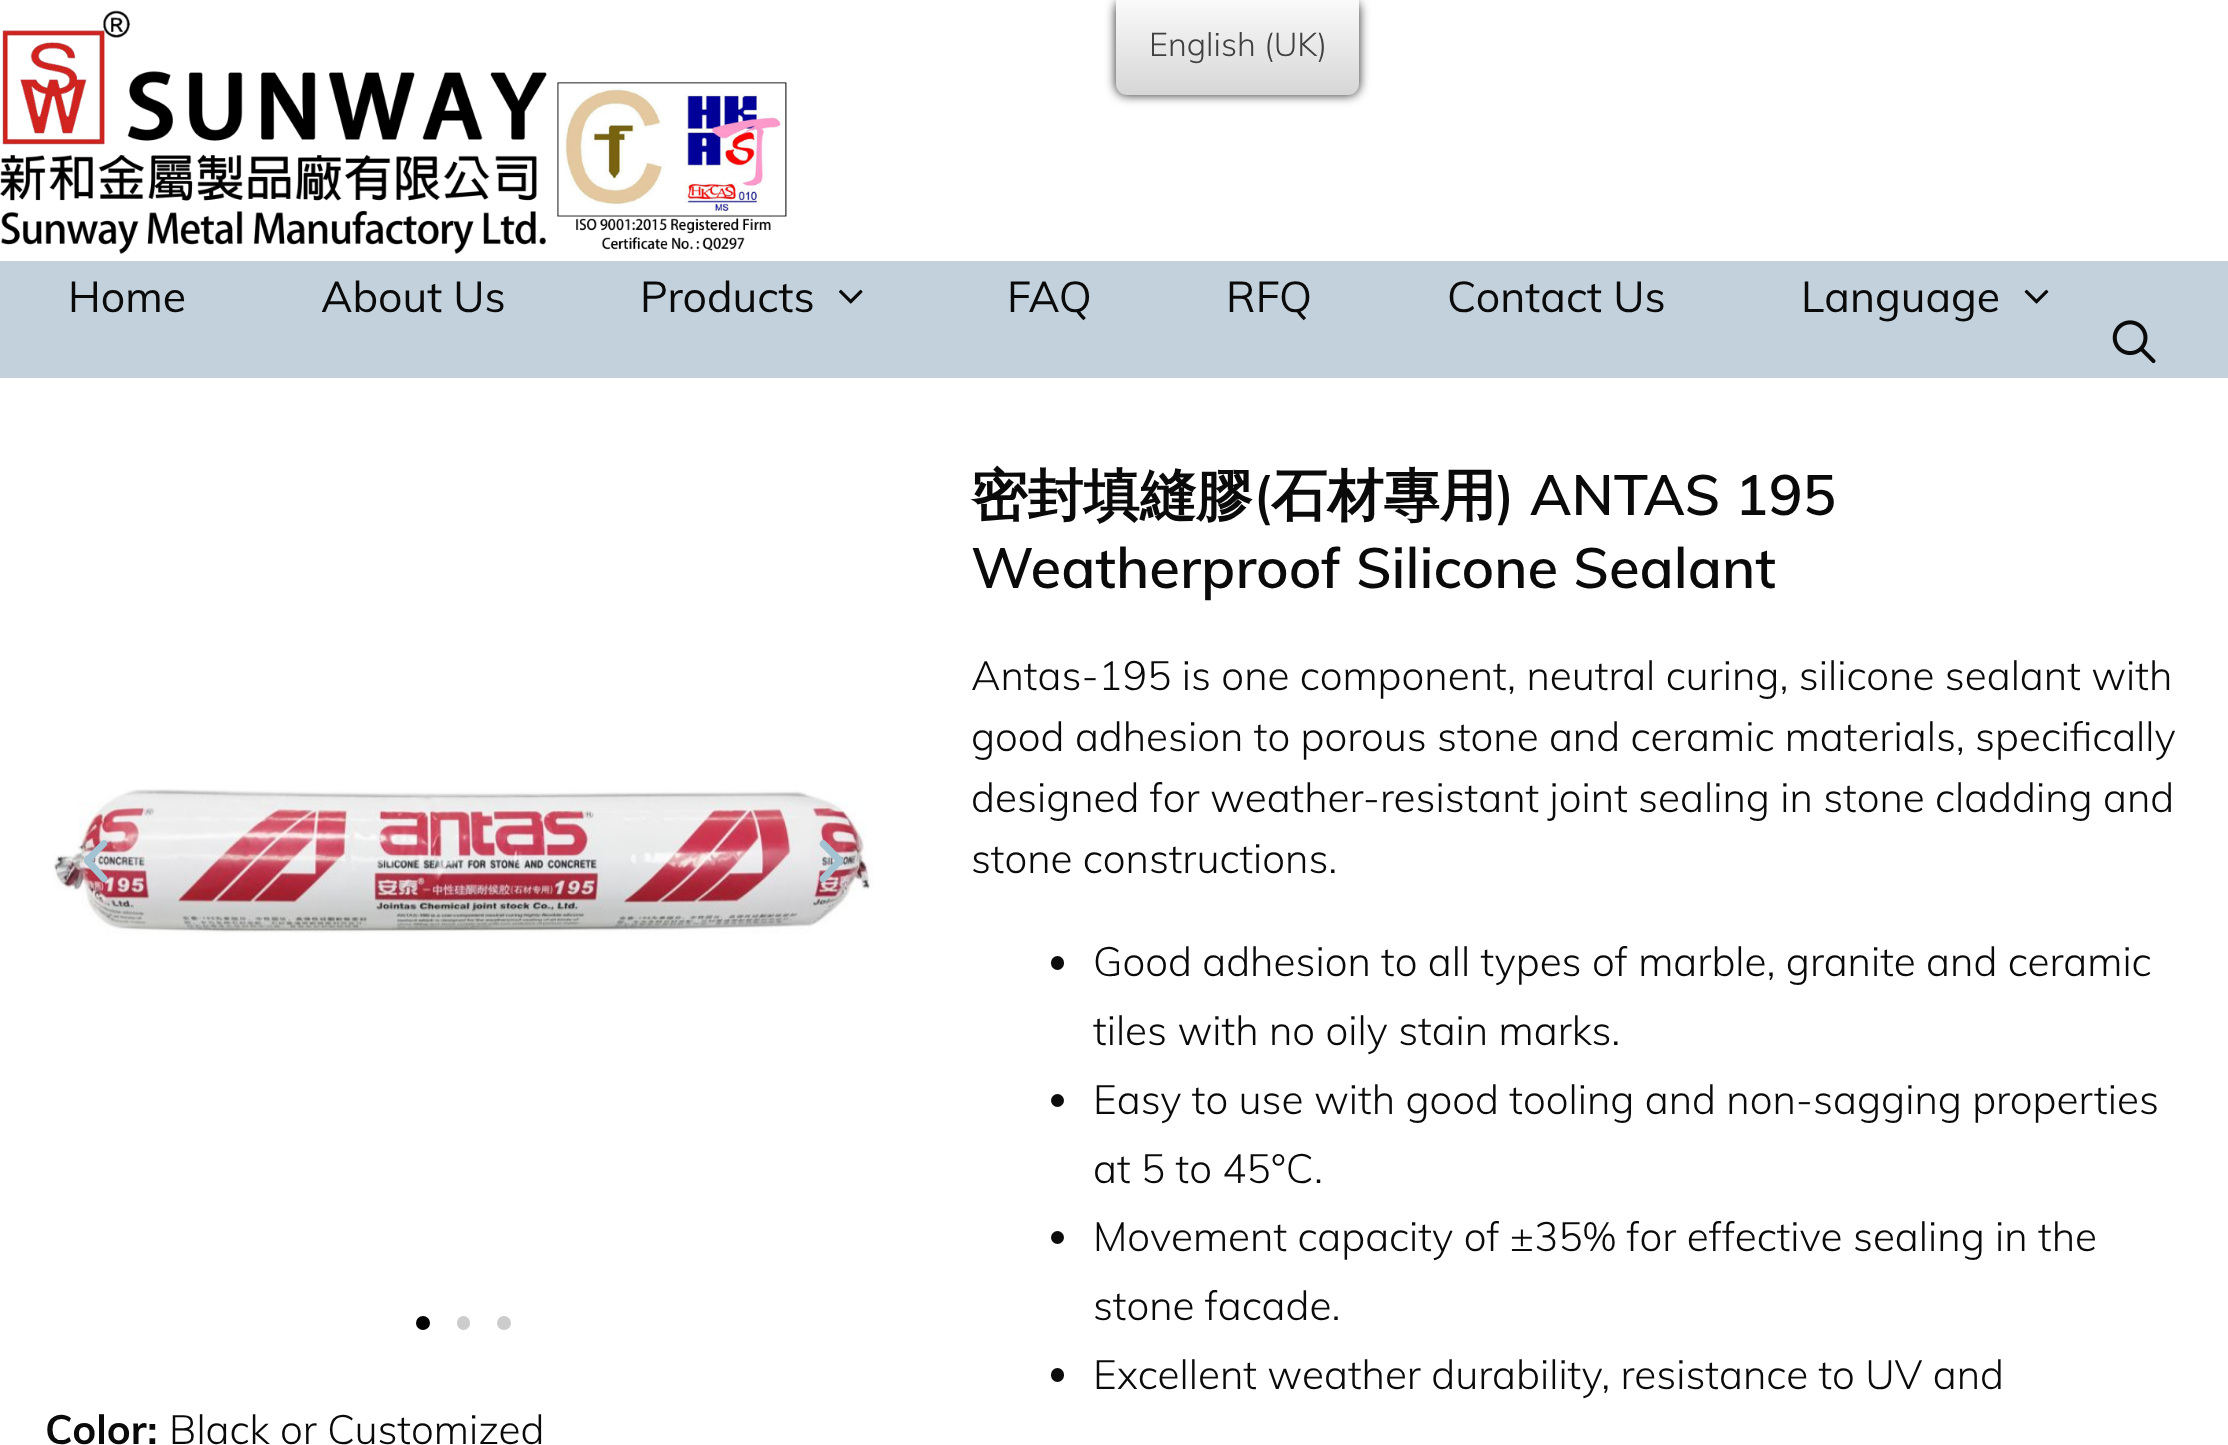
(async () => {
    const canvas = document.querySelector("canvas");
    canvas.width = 2228;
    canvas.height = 1445;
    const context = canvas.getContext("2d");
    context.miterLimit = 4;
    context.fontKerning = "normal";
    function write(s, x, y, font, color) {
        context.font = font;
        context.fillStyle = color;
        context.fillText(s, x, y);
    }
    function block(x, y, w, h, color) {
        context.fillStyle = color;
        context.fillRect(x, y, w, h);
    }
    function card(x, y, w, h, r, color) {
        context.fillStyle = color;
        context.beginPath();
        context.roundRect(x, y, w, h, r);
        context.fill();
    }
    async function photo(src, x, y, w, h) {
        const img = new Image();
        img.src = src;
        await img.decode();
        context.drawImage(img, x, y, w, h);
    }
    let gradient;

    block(0, 0, 2228, 1445, "rgb(255, 255, 255)");
    await photo("media/1.png", 0, 10, 787, 244);
    context.fillStyle = "rgb(33, 33, 33)";
    context.filter = "blur(5.5px)";
    context.beginPath();
    context.roundRect(1116, 0, 243, 95, 11);
    context.fill();
    context.filter = "none";
    gradient = context.createLinearGradient(1238, 95, 1238, 0);
    gradient.addColorStop(0, "rgb(214, 214, 214)");
    gradient.addColorStop(1, "rgb(250, 250, 250)");
    context.fillStyle = gradient;
    context.beginPath();
    context.roundRect(1116, 0, 243, 95, [0, 0, 11, 11]);
    context.fill();
    write("English (UK)", 1149, 56, "300 32.5px Muli", "rgb(64, 64, 64)");
    block(0, 261, 2228, 117, "rgb(195, 209, 220)");
    write("Home", 68, 312, "42.75px Muli", "rgb(10, 10, 10)");
    write("About Us", 321, 312, "42.75px Muli", "rgb(10, 10, 10)");
    write("Products", 640, 312, "42.75px Muli", "rgb(10, 10, 10)");
    await photo("media/2.png", 839, 289, 24, 15);
    write("FAQ", 1007, 312, "42.75px Muli", "rgb(10, 10, 10)");
    write("RFQ", 1226, 312, "42.75px Muli", "rgb(10, 10, 10)");
    write("Contact Us", 1447, 312, "42.75px Muli", "rgb(10, 10, 10)");
    write("Language", 1801, 312, "42.75px Muli", "rgb(10, 10, 10)");
    await photo("media/3.png", 2024, 289, 25, 15);
    await photo("media/4.png", 2112, 320, 44, 44);
    write("密封填縫膠", 971, 515, "bold 56.25px WenQuanYi Zen Hei", "rgb(10, 10, 10)");
    write("(", 1253, 515, "600 56.25px Muli", "rgb(10, 10, 10)");
    write("石材專用", 1271, 515, "bold 56.25px WenQuanYi Zen Hei", "rgb(10, 10, 10)");
    write(") ANTAS 195", 1496, 515, "600 56.25px Muli", "rgb(10, 10, 10)");
    write("Weatherproof Silicone Sealant", 971, 588, "600 56.25px Muli", "rgb(10, 10, 10)");
    write("Antas-195 is one component, neutral curing, silicone sealant with", 971, 690, "300 40.5px Muli", "rgb(10, 10, 10)");
    write("good adhesion to porous stone and ceramic materials, specifically", 971, 751, "300 40.5px Muli", "rgb(10, 10, 10)");
    write("designed for weather-resistant joint sealing in stone cladding and", 971, 812, "300 40.5px Muli", "rgb(10, 10, 10)");
    write("stone constructions.", 971, 873, "300 40.5px Muli", "rgb(10, 10, 10)");
    card(1051, 956, 13, 14, 6.5, "rgb(12, 12, 13)");
    write("Good adhesion to all types of marble, granite and ceramic", 1093, 976, "300 40.5px Muli", "rgb(10, 10, 10)");
    write("tiles with no oily stain marks.", 1093, 1045, "300 40.5px Muli", "rgb(10, 10, 10)");
    context.fillStyle = "rgb(12, 12, 13)";
    context.beginPath();
    context.arc(1057.5, 1100.5, 6.5, 0, Math.PI * 2);
    context.fill();
    write("Easy to use with good tooling and non-sagging properties", 1093, 1114, "300 40.5px Muli", "rgb(10, 10, 10)");
    write("at 5 to 45°C.", 1093, 1183, "300 40.5px Muli", "rgb(10, 10, 10)");
    context.fillStyle = "rgb(12, 12, 13)";
    context.beginPath();
    context.arc(1057.5, 1237.5, 6.5, 0, Math.PI * 2);
    context.fill();
    write("Movement capacity of ±35% for effective sealing in the", 1093, 1251, "300 40.5px Muli", "rgb(10, 10, 10)");
    write("stone facade.", 1093, 1320, "300 40.5px Muli", "rgb(10, 10, 10)");
    card(1051, 1368, 13, 14, 6.5, "rgb(12, 12, 13)");
    write("Excellent weather durability, resistance to UV and", 1093, 1389, "300 40.5px Muli", "rgb(10, 10, 10)");
    await photo("media/5.png", 53, 789, 820, 145);
    await photo("media/6.png", 84, 840, 24, 43);
    await photo("media/7.png", 819, 840, 25, 43);
    context.fillStyle = "rgb(0, 0, 0)";
    context.beginPath();
    context.arc(423, 1323, 7, 0, Math.PI * 2);
    context.fill();
    card(457, 1316, 13, 14, 6.5, "rgb(204, 204, 204)");
    context.beginPath();
    context.arc(504, 1323, 7, 0, Math.PI * 2);
    context.fill();
    write("Color:", 45, 1444, "bold 40.5px Muli", "rgb(10, 10, 10)");
    write("Black or Customized", 169, 1444, "300 40.5px Muli", "rgb(10, 10, 10)");
})();
